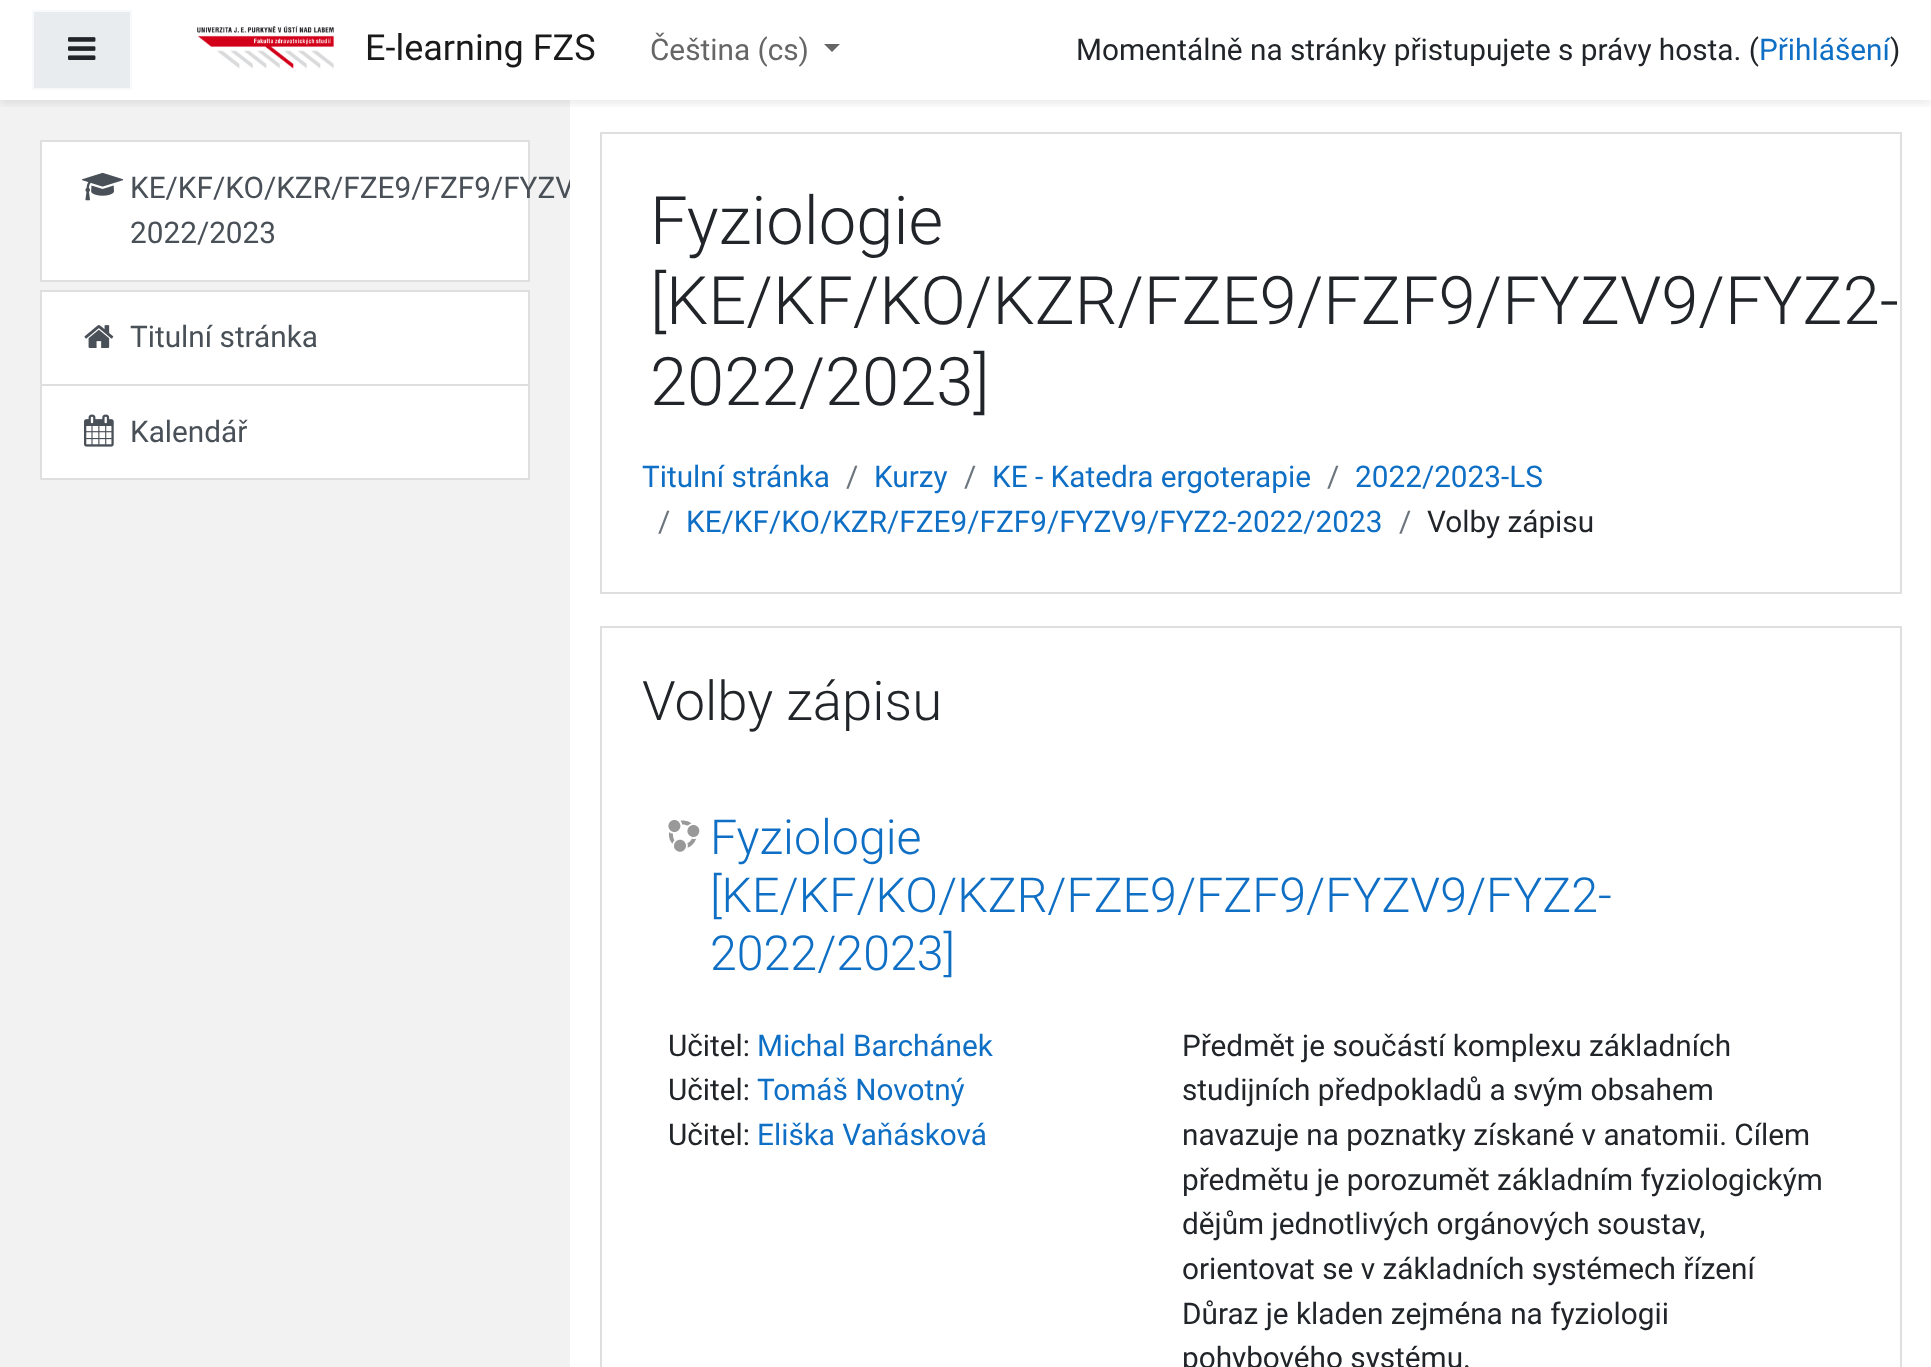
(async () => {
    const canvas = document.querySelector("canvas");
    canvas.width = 1931;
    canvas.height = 1367;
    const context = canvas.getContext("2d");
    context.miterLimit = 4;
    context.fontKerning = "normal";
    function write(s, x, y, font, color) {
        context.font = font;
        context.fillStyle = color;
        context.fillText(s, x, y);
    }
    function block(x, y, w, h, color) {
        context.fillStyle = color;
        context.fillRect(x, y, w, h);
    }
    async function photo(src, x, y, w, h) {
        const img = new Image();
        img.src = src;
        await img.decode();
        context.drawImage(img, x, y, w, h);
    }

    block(0, 0, 1931, 1367, "rgb(255, 255, 255)");
    block(0, 100, 570, 1267, "rgb(242, 242, 242)");
    context.save();
    context.beginPath();
    context.rect(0, 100, 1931, 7);
    context.clip();
    context.fillStyle = "rgba(0, 0, 0, 0.08)";
    context.filter = "blur(4px)";
    context.beginPath();
    context.rect(0, 4, 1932, 100);
    context.fill();
    context.filter = "none";
    context.restore();
    context.fillStyle = "rgb(233, 236, 239)";
    context.beginPath();
    context.rect(33, 11, 98, 78);
    context.fill();
    context.strokeStyle = "rgb(248, 249, 250)";
    context.lineWidth = 2;
    context.stroke();
    await photo("media/1.png", 68, 37, 28, 23);
    await photo("media/2.png", 197, 25, 137, 44);
    write("E-learning FZS", 365, 60, "36px Roboto", "rgb(26, 26, 26)");
    write("Čeština (cs)", 650, 60, "29.75px Roboto", "rgb(102, 102, 102)");
    context.beginPath();
    context.moveTo(824, 44);
    context.lineTo(840, 44);
    context.lineTo(832, 52);
    context.closePath();
    context.fill();
    write("Momentálně na stránky přistupujete s právy hosta. (", 1076, 60, "29.75px Roboto", "rgb(33, 37, 41)");
    write("Přihlášení", 1759, 60, "29.75px Roboto", "rgb(15, 111, 197)");
    write(")", 1890, 60, "29.75px Roboto", "rgb(33, 37, 41)");
    context.fillStyle = "rgb(255, 255, 255)";
    context.beginPath();
    context.rect(41, 141, 488, 140);
    context.fill();
    context.strokeStyle = "rgb(223, 223, 223)";
    context.stroke();
    await photo("media/3.png", 82, 172, 42, 29);
    context.save();
    context.beginPath();
    context.rect(0, 100, 570, 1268);
    context.clip();
    write("KE/KF/KO/KZR/FZE9/FZF9/FYZV", 130, 198, "29.75px Roboto", "rgb(73, 80, 87)");
    context.restore();
    write("2022/2023", 130, 243, "29.75px Roboto", "rgb(73, 80, 87)");
    context.fillStyle = "rgb(255, 255, 255)";
    context.beginPath();
    context.rect(41, 291, 488, 94);
    context.fill();
    context.stroke();
    await photo("media/4.png", 84, 325, 30, 23);
    write("Titulní stránka", 130, 347, "29.75px Roboto", "rgb(73, 80, 87)");
    context.fillStyle = "rgb(255, 255, 255)";
    context.beginPath();
    context.rect(41, 385, 488, 94);
    context.fill();
    context.stroke();
    await photo("media/5.png", 84, 414, 30, 33);
    write("Kalendář", 130, 442, "29.75px Roboto", "rgb(73, 80, 87)");
    context.strokeRect(601, 133, 1300, 460);
    write("Fyziologie", 650, 244, "300 66.9px Roboto", "rgb(33, 37, 41)");
    write("[KE/KF/KO/KZR/FZE9/FZF9/FYZV9/FYZ2-", 650, 324, "300 66.9px Roboto", "rgb(33, 37, 41)");
    write("2022/2023]", 650, 405, "300 66.9px Roboto", "rgb(33, 37, 41)");
    write("Titulní stránka", 642, 487, "29.75px Roboto", "rgb(15, 111, 197)");
    write("/", 846, 487, "29.75px Roboto", "rgb(108, 117, 125)");
    write("Kurzy", 874, 487, "29.75px Roboto", "rgb(15, 111, 197)");
    write("/", 964, 487, "29.75px Roboto", "rgb(108, 117, 125)");
    write("KE - Katedra ergoterapie", 992, 487, "29.75px Roboto", "rgb(15, 111, 197)");
    write("/", 1327, 487, "29.75px Roboto", "rgb(108, 117, 125)");
    write("2022/2023-LS", 1355, 487, "29.75px Roboto", "rgb(15, 111, 197)");
    write("/", 658, 532, "29.75px Roboto", "rgb(108, 117, 125)");
    write("KE/KF/KO/KZR/FZE9/FZF9/FYZV9/FYZ2-2022/2023", 686, 532, "29.75px Roboto", "rgb(15, 111, 197)");
    write("/", 1399, 532, "29.75px Roboto", "rgb(108, 117, 125)");
    write("Volby zápisu", 1427, 532, "29.75px Roboto", "rgb(33, 37, 41)");
    context.strokeRect(601, 627, 1300, 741);
    write("Volby zápisu", 642, 720, "300 54.5px Roboto", "rgb(33, 37, 41)");
    await photo("media/6.png", 668, 820, 32, 32);
    write("Fyziologie", 710, 854, "300 48.3px Roboto", "rgb(15, 111, 197)");
    write("[KE/KF/KO/KZR/FZE9/FZF9/FYZV9/FYZ2-", 710, 912, "300 48.3px Roboto", "rgb(15, 111, 197)");
    write("2022/2023]", 710, 970, "300 48.3px Roboto", "rgb(15, 111, 197)");
    write("Učitel:", 668, 1056, "29.75px Roboto", "rgb(33, 37, 41)");
    write("Michal Barchánek", 757, 1056, "29.75px Roboto", "rgb(15, 111, 197)");
    write("Učitel:", 668, 1100, "29.75px Roboto", "rgb(33, 37, 41)");
    write("Tomáš Novotný", 757, 1100, "29.75px Roboto", "rgb(15, 111, 197)");
    write("Učitel:", 668, 1145, "29.75px Roboto", "rgb(33, 37, 41)");
    write("Eliška Vaňásková", 757, 1145, "29.75px Roboto", "rgb(15, 111, 197)");
    write("Předmět je součástí komplexu základních", 1182, 1056, "29.75px Roboto", "rgb(33, 37, 41)");
    write("studijních předpokladů a svým obsahem", 1182, 1100, "29.75px Roboto", "rgb(33, 37, 41)");
    write("navazuje na poznatky získané v anatomii. Cílem", 1182, 1145, "29.75px Roboto", "rgb(33, 37, 41)");
    write("předmětu je porozumět základním fyziologickým", 1182, 1190, "29.75px Roboto", "rgb(33, 37, 41)");
    write("dějům jednotlivých orgánových soustav,", 1182, 1234, "29.75px Roboto", "rgb(33, 37, 41)");
    write("orientovat se v základních systémech řízení", 1182, 1279, "29.75px Roboto", "rgb(33, 37, 41)");
    write("Důraz je kladen zejména na fyziologii", 1182, 1324, "29.75px Roboto", "rgb(33, 37, 41)");
    write("pohybového systému.", 1182, 1368, "29.75px Roboto", "rgb(33, 37, 41)");
})();
